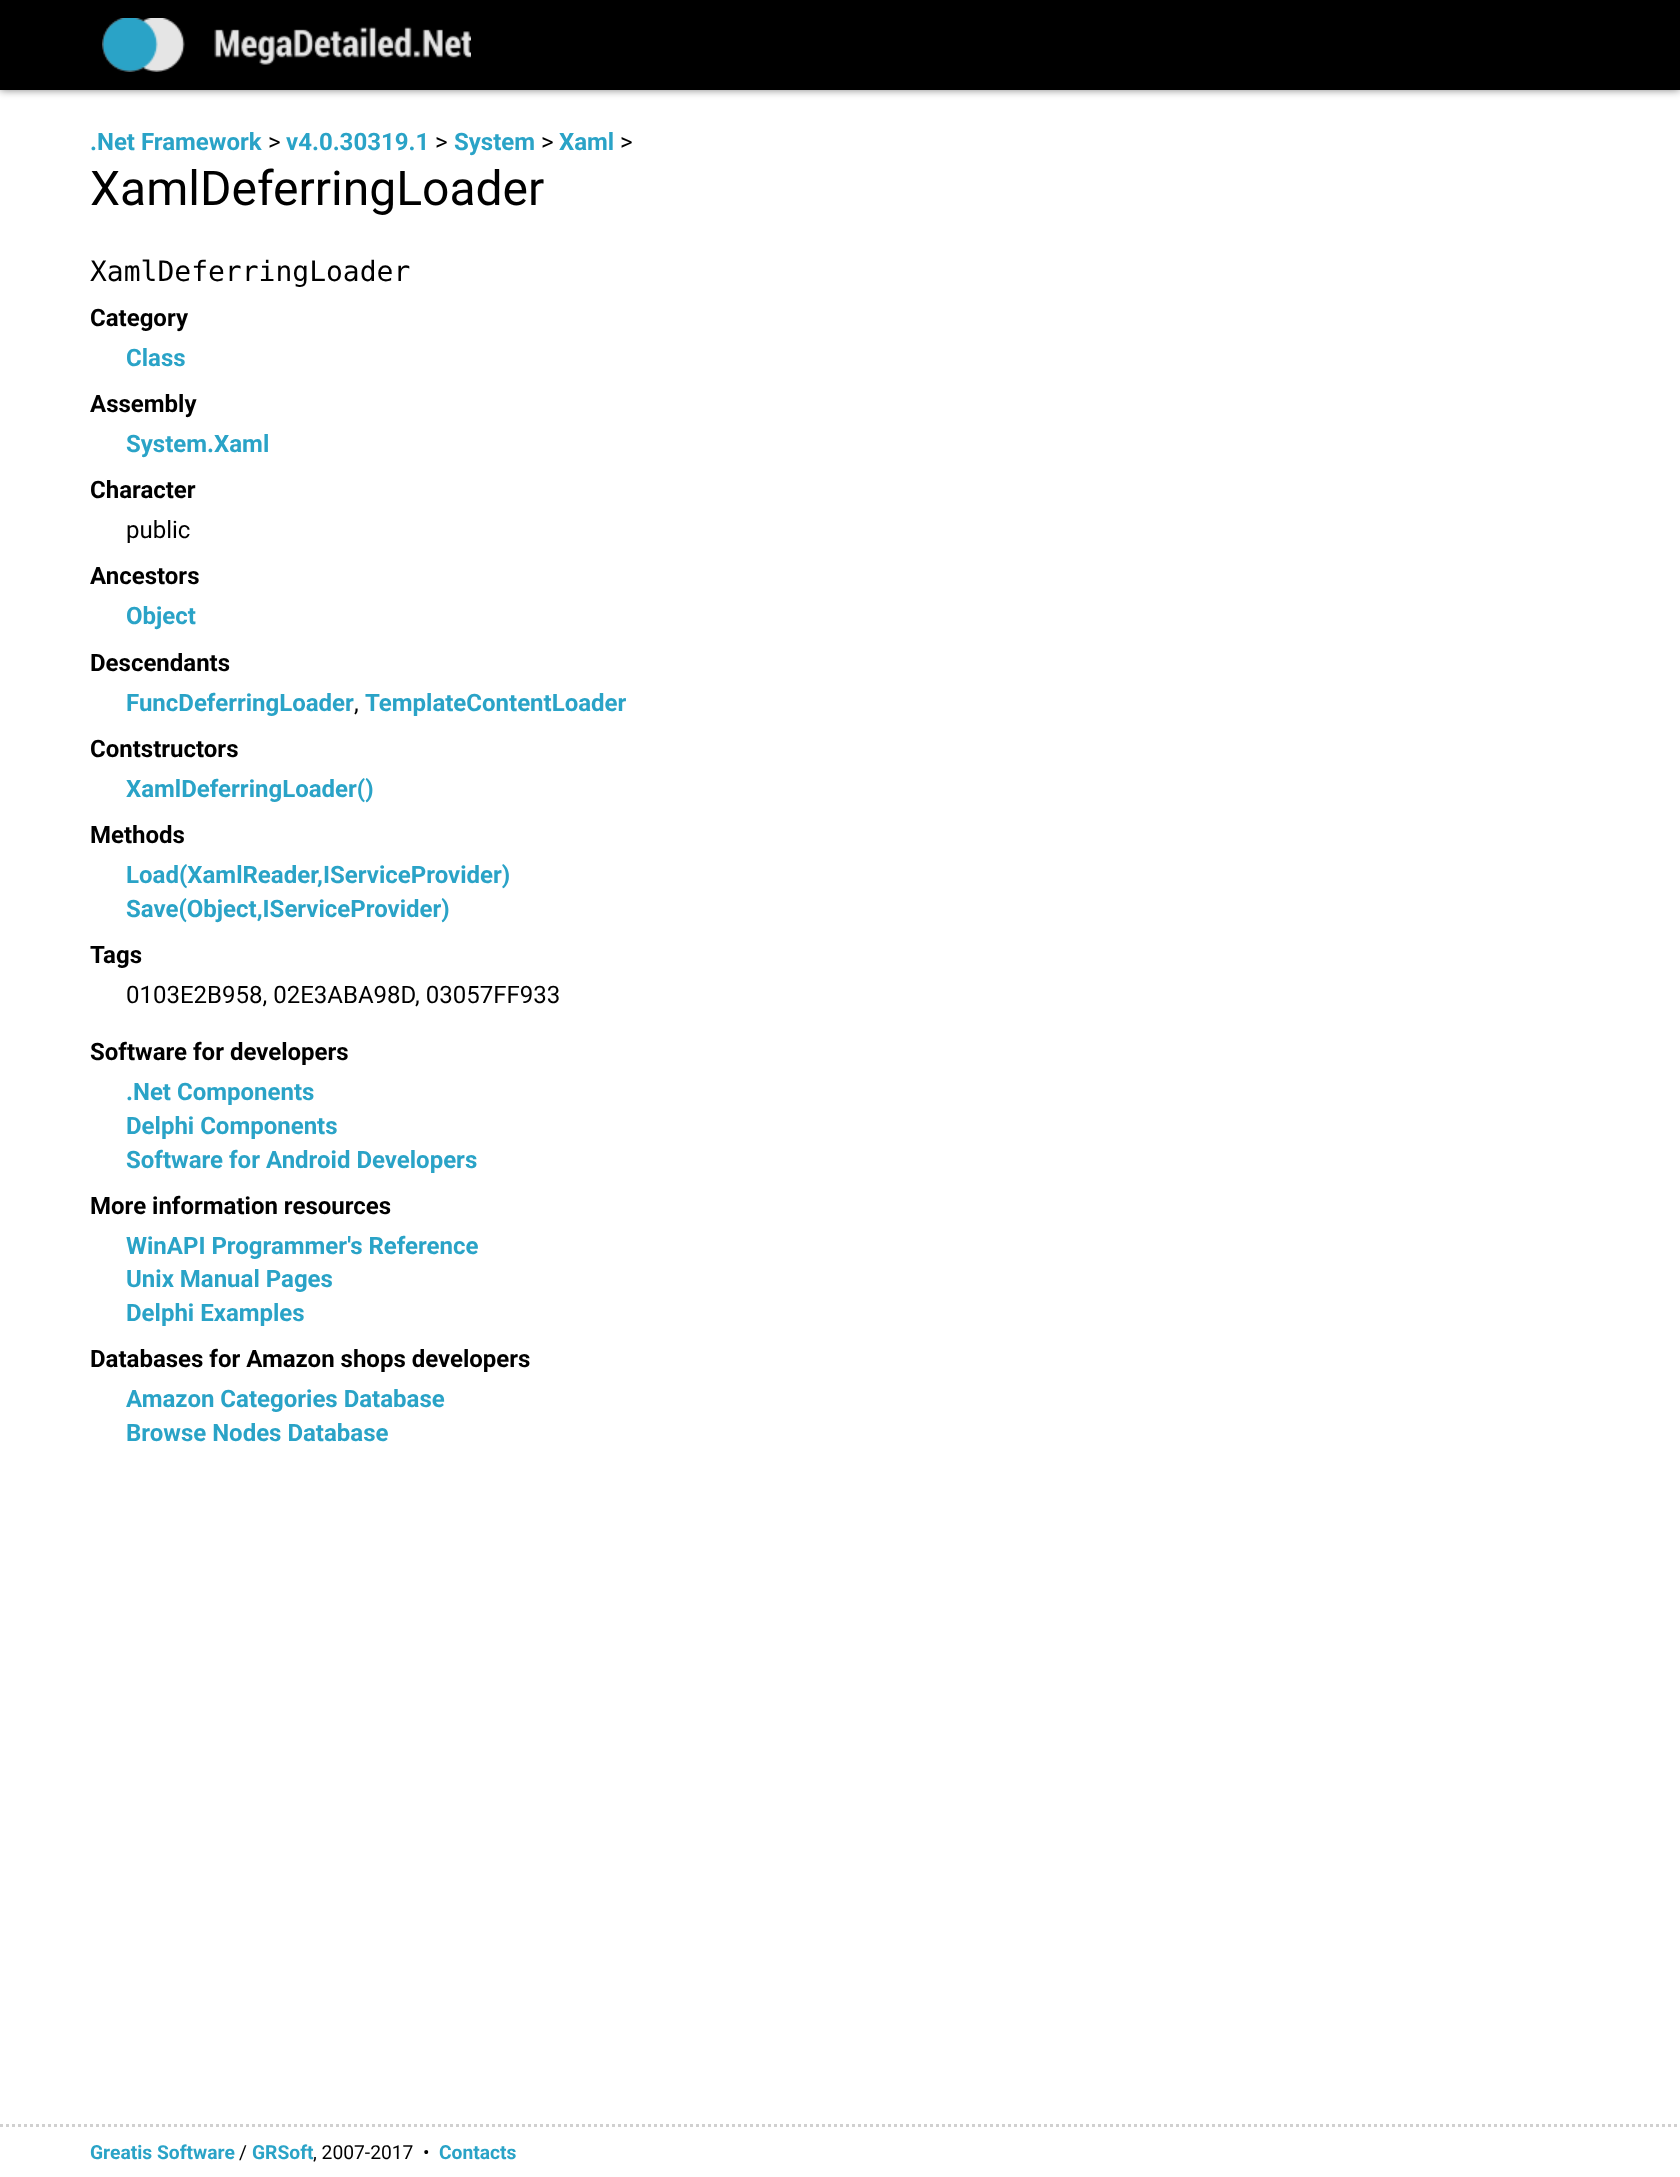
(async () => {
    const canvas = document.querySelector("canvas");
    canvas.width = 1680;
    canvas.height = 2177;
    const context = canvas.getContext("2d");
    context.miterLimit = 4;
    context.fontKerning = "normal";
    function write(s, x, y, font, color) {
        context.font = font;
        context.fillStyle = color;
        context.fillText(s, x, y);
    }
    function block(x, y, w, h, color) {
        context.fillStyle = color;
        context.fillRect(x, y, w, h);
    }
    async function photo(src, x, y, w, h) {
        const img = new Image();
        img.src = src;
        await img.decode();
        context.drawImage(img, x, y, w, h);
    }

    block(0, 0, 1680, 2177, "rgb(255, 255, 255)");
    context.fillStyle = "rgba(0, 0, 0, 0.5)";
    context.filter = "blur(4px)";
    context.beginPath();
    context.rect(0, 0, 1680, 90);
    context.fill();
    context.filter = "none";
    block(0, 0, 1680, 90, "rgb(0, 0, 0)");
    await photo("media/1.png", 102, 18, 369, 54);
    write(".Net Framework", 90, 150, "bold 24px Roboto", "rgb(42, 163, 199)");
    write(">", 268, 150, "24px Roboto", "rgb(0, 0, 0)");
    write("v4.0.30319.1", 286, 150, "bold 24px Roboto", "rgb(42, 163, 199)");
    write(">", 435, 150, "24px Roboto", "rgb(0, 0, 0)");
    write("System", 454, 150, "bold 24px Roboto", "rgb(42, 163, 199)");
    write(">", 541, 150, "24px Roboto", "rgb(0, 0, 0)");
    write("Xaml", 559, 150, "bold 24px Roboto", "rgb(42, 163, 199)");
    write(">", 620, 150, "24px Roboto", "rgb(0, 0, 0)");
    write("XamlDeferringLoader", 90, 205, "48px Roboto", "rgb(0, 0, 0)");
    write("XamlDeferringLoader", 90, 281, "28px DejaVu Sans Mono", "rgb(0, 0, 0)");
    write("Category", 90, 326, "bold 24px Roboto", "rgb(0, 0, 0)");
    write("Class", 126, 366, "bold 24px Roboto", "rgb(42, 163, 199)");
    write("Assembly", 90, 412, "bold 24px Roboto", "rgb(0, 0, 0)");
    write("System.Xaml", 126, 452, "bold 24px Roboto", "rgb(42, 163, 199)");
    write("Character", 90, 498, "bold 24px Roboto", "rgb(0, 0, 0)");
    write("public", 126, 538, "24px Roboto", "rgb(0, 0, 0)");
    write("Ancestors", 90, 584, "bold 24px Roboto", "rgb(0, 0, 0)");
    write("Object", 126, 624, "bold 24px Roboto", "rgb(42, 163, 199)");
    write("Descendants", 90, 671, "bold 24px Roboto", "rgb(0, 0, 0)");
    write("FuncDeferringLoader", 126, 711, "bold 24px Roboto", "rgb(42, 163, 199)");
    write(",", 354, 711, "24px Roboto", "rgb(0, 0, 0)");
    write("TemplateContentLoader", 365, 711, "bold 24px Roboto", "rgb(42, 163, 199)");
    write("Contstructors", 90, 757, "bold 24px Roboto", "rgb(0, 0, 0)");
    write("XamlDeferringLoader()", 126, 797, "bold 24px Roboto", "rgb(42, 163, 199)");
    write("Methods", 90, 843, "bold 24px Roboto", "rgb(0, 0, 0)");
    write("Load(XamlReader,IServiceProvider)", 126, 883, "bold 24px Roboto", "rgb(42, 163, 199)");
    write("Save(Object,IServiceProvider)", 126, 917, "bold 24px Roboto", "rgb(42, 163, 199)");
    write("Tags", 90, 963, "bold 24px Roboto", "rgb(0, 0, 0)");
    write("0103E2B958, 02E3ABA98D, 03057FF933", 126, 1003, "24px Roboto", "rgb(0, 0, 0)");
    write("Software for developers", 90, 1060, "bold 24px Roboto", "rgb(0, 0, 0)");
    write(".Net Components", 126, 1100, "bold 24px Roboto", "rgb(42, 163, 199)");
    write("Delphi Components", 126, 1134, "bold 24px Roboto", "rgb(42, 163, 199)");
    write("Software for Android Developers", 126, 1168, "bold 24px Roboto", "rgb(42, 163, 199)");
    write("More information resources", 90, 1214, "bold 24px Roboto", "rgb(0, 0, 0)");
    write("WinAPI Programmer's Reference", 126, 1254, "bold 24px Roboto", "rgb(42, 163, 199)");
    write("Unix Manual Pages", 126, 1287, "bold 24px Roboto", "rgb(42, 163, 199)");
    write("Delphi Examples", 126, 1321, "bold 24px Roboto", "rgb(42, 163, 199)");
    write("Databases for Amazon shops developers", 90, 1367, "bold 24px Roboto", "rgb(0, 0, 0)");
    write("Amazon Categories Database", 126, 1407, "bold 24px Roboto", "rgb(42, 163, 199)");
    write("Browse Nodes Database", 126, 1441, "bold 24px Roboto", "rgb(42, 163, 199)");
    context.beginPath();
    context.moveTo(0, 2125.5);
    context.lineTo(1680, 2125.5);
    context.strokeStyle = "rgb(208, 208, 208)";
    context.lineWidth = 3;
    context.setLineDash([3, 3]);
    context.stroke();
    write("Greatis Software", 90, 2159, "bold 19.25px Roboto", "rgb(42, 163, 199)");
    write("/", 239, 2159, "19.25px Roboto", "rgb(0, 0, 0)");
    write("GRSoft", 252, 2159, "bold 19.25px Roboto", "rgb(42, 163, 199)");
    write(", 2007-2017  •", 313, 2159, "19.25px Roboto", "rgb(0, 0, 0)");
    write("Contacts", 439, 2159, "bold 19.25px Roboto", "rgb(42, 163, 199)");
})();
